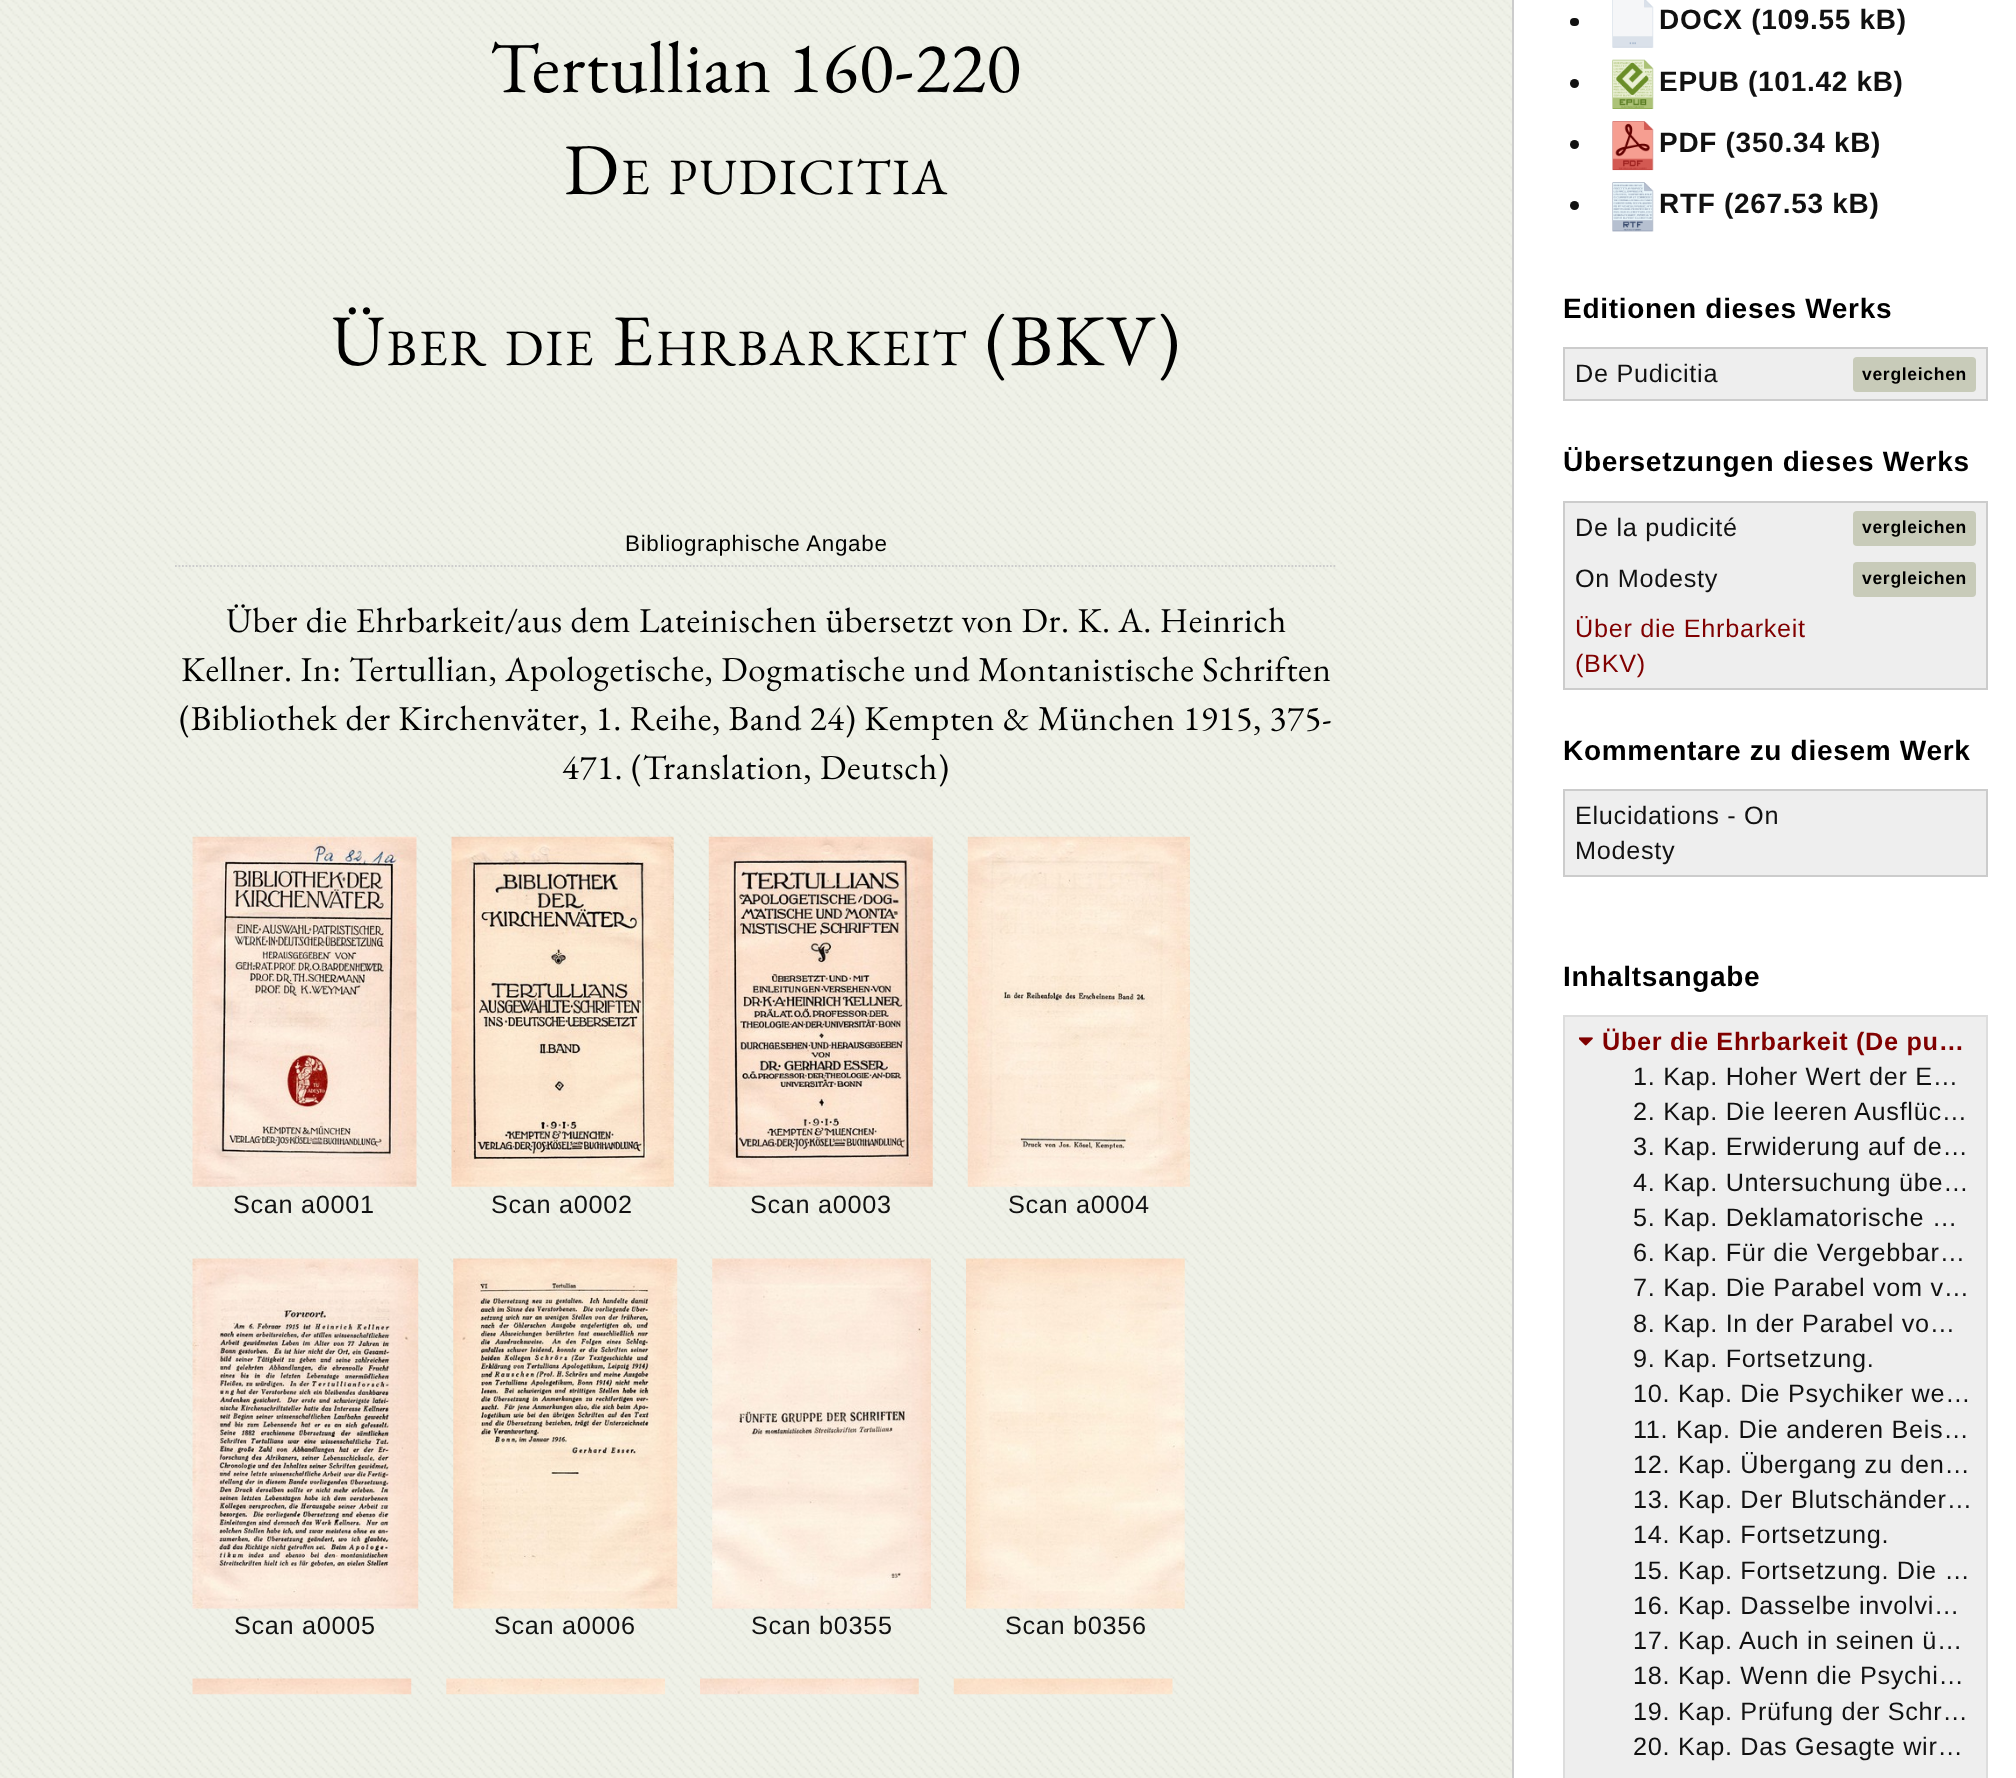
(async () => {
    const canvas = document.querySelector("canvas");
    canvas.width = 2016;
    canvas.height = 1778;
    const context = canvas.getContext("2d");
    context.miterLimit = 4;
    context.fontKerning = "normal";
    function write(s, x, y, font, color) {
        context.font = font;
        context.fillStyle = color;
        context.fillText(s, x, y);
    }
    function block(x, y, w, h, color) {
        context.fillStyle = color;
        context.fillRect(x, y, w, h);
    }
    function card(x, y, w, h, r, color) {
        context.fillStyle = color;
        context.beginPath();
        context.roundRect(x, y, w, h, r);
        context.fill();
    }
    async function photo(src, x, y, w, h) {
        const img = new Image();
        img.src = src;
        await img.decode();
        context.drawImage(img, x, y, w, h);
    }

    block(0, 0, 2016, 1778, "rgb(255, 255, 255)");
    await photo("media/1.png", 0, 0, 1512, 1778);
    context.letterSpacing = "0.7px";
    write("Tertullian 160-220", 490, 92, "72.75px EB Garamond", "rgb(0, 0, 0)");
    context.letterSpacing = "2px";
    write("D", 564, 194, "72.75px EB Garamond", "rgb(0, 0, 0)");
    write("E", 621, 194, "51px EB Garamond", "rgb(0, 0, 0)");
    write("PUDICITIA", 669, 194, "51px EB Garamond", "rgb(0, 0, 0)");
    write("Ü", 331, 365, "72.75px EB Garamond", "rgb(0, 0, 0)");
    write("BER", 387, 365, "51px EB Garamond", "rgb(0, 0, 0)");
    write("DIE", 505, 365, "51px EB Garamond", "rgb(0, 0, 0)");
    write("E", 612, 365, "72.75px EB Garamond", "rgb(0, 0, 0)");
    write("HRBARKEIT", 656, 365, "51px EB Garamond", "rgb(0, 0, 0)");
    write("(BKV)", 985, 365, "72.75px EB Garamond", "rgb(0, 0, 0)");
    context.beginPath();
    context.moveTo(175, 566);
    context.lineTo(1337, 566);
    context.strokeStyle = "rgb(204, 204, 204)";
    context.lineWidth = 1.8;
    context.setLineDash([1.75, 1.75]);
    context.stroke();
    context.letterSpacing = "0.7px";
    write("Bibliographische Angabe", 625, 551, "22.4px Liberation Sans", "rgb(0, 0, 0)");
    write("Über die Ehrbarkeit/aus dem Lateinischen übersetzt von Dr. K. A. Heinrich", 226, 632, "35px EB Garamond", "rgb(0, 0, 0)");
    write("Kellner. In: Tertullian, Apologetische, Dogmatische und Montanistische Schriften", 181, 681, "35px EB Garamond", "rgb(0, 0, 0)");
    write("(Bibliothek der Kirchenväter, 1. Reihe, Band 24) Kempten & München 1915, 375-", 179, 730, "35px EB Garamond", "rgb(0, 0, 0)");
    write("471. (Translation, Deutsch)", 562, 779, "35px EB Garamond", "rgb(0, 0, 0)");
    await photo("media/2.png", 192, 836, 225, 351);
    write("Scan a0001", 233, 1213, "25.25px Liberation Sans", "rgb(17, 17, 17)");
    await photo("media/3.png", 451, 836, 223, 351);
    write("Scan a0002", 491, 1213, "25.25px Liberation Sans", "rgb(17, 17, 17)");
    await photo("media/4.png", 708, 836, 225, 351);
    write("Scan a0003", 750, 1213, "25.25px Liberation Sans", "rgb(17, 17, 17)");
    await photo("media/5.png", 967, 836, 223, 351);
    write("Scan a0004", 1008, 1213, "25.25px Liberation Sans", "rgb(17, 17, 17)");
    await photo("media/6.png", 192, 1258, 227, 351);
    write("Scan a0005", 234, 1634, "25.25px Liberation Sans", "rgb(17, 17, 17)");
    await photo("media/7.png", 453, 1258, 225, 351);
    write("Scan a0006", 494, 1634, "25.25px Liberation Sans", "rgb(17, 17, 17)");
    await photo("media/8.png", 712, 1258, 219, 351);
    write("Scan b0355", 751, 1634, "25.25px Liberation Sans", "rgb(17, 17, 17)");
    await photo("media/9.png", 966, 1258, 219, 351);
    write("Scan b0356", 1005, 1634, "25.25px Liberation Sans", "rgb(17, 17, 17)");
    await photo("media/10.png", 192, 1678, 220, 17);
    await photo("media/11.png", 446, 1678, 219, 17);
    await photo("media/12.png", 700, 1678, 219, 17);
    await photo("media/13.png", 953, 1678, 220, 17);
    block(1512, 0, 2, 1778, "rgb(204, 204, 204)");
    card(1570, 18, 9, 8, 4, "rgb(17, 17, 17)");
    await photo("media/14.png", 1612, 0, 42, 48);
    write("DOCX (109.55 kB)", 1659, 29, "bold 28px Liberation Sans", "rgb(17, 17, 17)");
    context.beginPath();
    context.arc(1574.5, 83.5, 4.5, 0, Math.PI * 2);
    context.fill();
    await photo("media/15.png", 1612, 59, 42, 50);
    write("EPUB (101.42 kB)", 1659, 91, "bold 28px Liberation Sans", "rgb(17, 17, 17)");
    context.beginPath();
    context.arc(1574.5, 144.5, 4.5, 0, Math.PI * 2);
    context.fill();
    await photo("media/16.png", 1612, 121, 42, 50);
    write("PDF (350.34 kB)", 1659, 152, "bold 28px Liberation Sans", "rgb(17, 17, 17)");
    context.beginPath();
    context.arc(1574.5, 205.5, 4.5, 0, Math.PI * 2);
    context.fill();
    await photo("media/17.png", 1612, 182, 42, 50);
    write("RTF (267.53 kB)", 1659, 213, "bold 28px Liberation Sans", "rgb(17, 17, 17)");
    write("Editionen dieses Werks", 1563, 318, "bold 28px Liberation Sans", "rgb(0, 0, 0)");
    block(1565, 349, 421, 50, "rgb(238, 238, 238)");
    block(1563, 347, 425, 2, "rgb(204, 204, 204)");
    block(1986, 347, 2, 54, "rgb(204, 204, 204)");
    block(1563, 399, 425, 2, "rgb(204, 204, 204)");
    block(1563, 347, 2, 54, "rgb(204, 204, 204)");
    write("De Pudicitia", 1575, 382, "25.25px Liberation Sans", "rgb(17, 17, 17)");
    card(1853, 357, 123, 35, 4, "rgb(200, 203, 185)");
    write("vergleichen", 1862, 380, "bold 17.5px Liberation Sans", "rgb(0, 0, 0)");
    write("Übersetzungen dieses Werks", 1563, 471, "bold 28px Liberation Sans", "rgb(0, 0, 0)");
    block(1565, 503, 421, 185, "rgb(238, 238, 238)");
    block(1563, 501, 425, 2, "rgb(204, 204, 204)");
    block(1986, 501, 2, 189, "rgb(204, 204, 204)");
    block(1563, 688, 425, 2, "rgb(204, 204, 204)");
    block(1563, 501, 2, 189, "rgb(204, 204, 204)");
    write("De la pudicité", 1575, 536, "25.25px Liberation Sans", "rgb(17, 17, 17)");
    card(1853, 511, 123, 35, 4, "rgb(200, 203, 185)");
    write("vergleichen", 1862, 533, "bold 17.5px Liberation Sans", "rgb(0, 0, 0)");
    write("On Modesty", 1575, 587, "25.25px Liberation Sans", "rgb(17, 17, 17)");
    card(1853, 562, 123, 35, 4, "rgb(200, 203, 185)");
    write("vergleichen", 1862, 584, "bold 17.5px Liberation Sans", "rgb(0, 0, 0)");
    write("Über die Ehrbarkeit", 1575, 637, "25.25px Liberation Sans", "rgb(128, 0, 0)");
    write("(BKV)", 1575, 672, "25.25px Liberation Sans", "rgb(128, 0, 0)");
    write("Kommentare zu diesem Werk", 1563, 760, "bold 28px Liberation Sans", "rgb(0, 0, 0)");
    block(1565, 791, 421, 84, "rgb(238, 238, 238)");
    block(1563, 789, 425, 2, "rgb(204, 204, 204)");
    block(1986, 789, 2, 88, "rgb(204, 204, 204)");
    block(1563, 875, 425, 2, "rgb(204, 204, 204)");
    block(1563, 789, 2, 88, "rgb(204, 204, 204)");
    write("Elucidations - On", 1575, 824, "25.25px Liberation Sans", "rgb(17, 17, 17)");
    write("Modesty", 1575, 859, "25.25px Liberation Sans", "rgb(17, 17, 17)");
    write("Inhaltsangabe", 1563, 986, "bold 28px Liberation Sans", "rgb(0, 0, 0)");
    context.fillStyle = "rgb(238, 238, 238)";
    context.beginPath();
    context.rect(1564, 1016, 423, 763);
    context.fill();
    context.strokeStyle = "rgb(221, 221, 221)";
    context.lineWidth = 2;
    context.setLineDash([]);
    context.stroke();
    await photo("media/18.png", 1579, 1037, 14, 9);
    write("Über die Ehrbarkeit (De pu…", 1602, 1050, "bold 25.25px Liberation Sans", "rgb(128, 0, 0)");
    write("1. Kap. Hoher Wert der E…", 1633, 1085, "25.25px Liberation Sans", "rgb(17, 17, 17)");
    write("2. Kap. Die leeren Ausflüc…", 1633, 1120, "25.25px Liberation Sans", "rgb(17, 17, 17)");
    write("3. Kap. Erwiderung auf de…", 1633, 1155, "25.25px Liberation Sans", "rgb(17, 17, 17)");
    write("4. Kap. Untersuchung übe…", 1633, 1191, "25.25px Liberation Sans", "rgb(17, 17, 17)");
    write("5. Kap. Deklamatorische …", 1633, 1226, "25.25px Liberation Sans", "rgb(17, 17, 17)");
    write("6. Kap. Für die Vergebbar…", 1633, 1261, "25.25px Liberation Sans", "rgb(17, 17, 17)");
    write("7. Kap. Die Parabel vom v…", 1633, 1296, "25.25px Liberation Sans", "rgb(17, 17, 17)");
    write("8. Kap. In der Parabel vo…", 1633, 1332, "25.25px Liberation Sans", "rgb(17, 17, 17)");
    write("9. Kap. Fortsetzung.", 1633, 1367, "25.25px Liberation Sans", "rgb(17, 17, 17)");
    write("10. Kap. Die Psychiker we…", 1633, 1402, "25.25px Liberation Sans", "rgb(17, 17, 17)");
    write("11. Kap. Die anderen Beis…", 1633, 1438, "25.25px Liberation Sans", "rgb(17, 17, 17)");
    write("12. Kap. Übergang zu den…", 1633, 1473, "25.25px Liberation Sans", "rgb(17, 17, 17)");
    write("13. Kap. Der Blutschänder…", 1633, 1508, "25.25px Liberation Sans", "rgb(17, 17, 17)");
    write("14. Kap. Fortsetzung.", 1633, 1543, "25.25px Liberation Sans", "rgb(17, 17, 17)");
    write("15. Kap. Fortsetzung. Die …", 1633, 1579, "25.25px Liberation Sans", "rgb(17, 17, 17)");
    write("16. Kap. Dasselbe involvi…", 1633, 1614, "25.25px Liberation Sans", "rgb(17, 17, 17)");
    write("17. Kap. Auch in seinen ü…", 1633, 1649, "25.25px Liberation Sans", "rgb(17, 17, 17)");
    write("18. Kap. Wenn die Psychi…", 1633, 1684, "25.25px Liberation Sans", "rgb(17, 17, 17)");
    write("19. Kap. Prüfung der Schr…", 1633, 1720, "25.25px Liberation Sans", "rgb(17, 17, 17)");
    write("20. Kap. Das Gesagte wir…", 1633, 1755, "25.25px Liberation Sans", "rgb(17, 17, 17)");
})();
